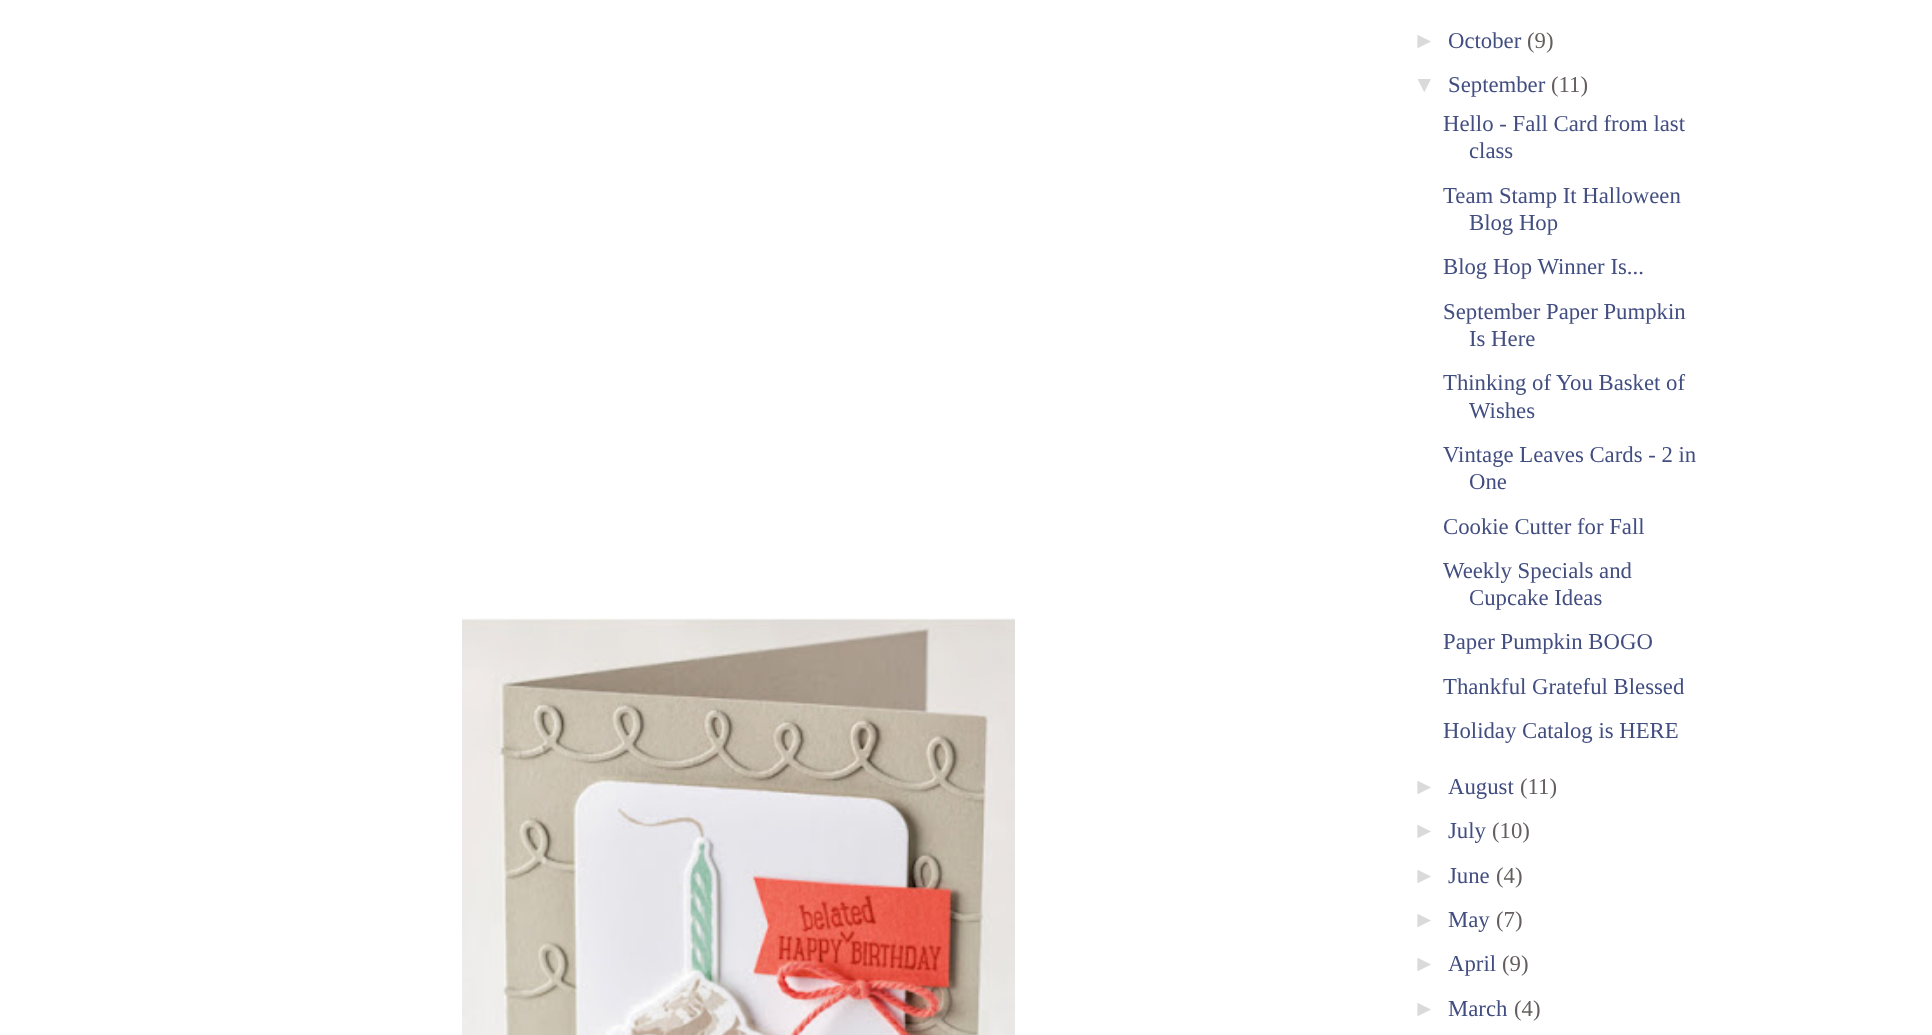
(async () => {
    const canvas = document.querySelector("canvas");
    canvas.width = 1932;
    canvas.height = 1035;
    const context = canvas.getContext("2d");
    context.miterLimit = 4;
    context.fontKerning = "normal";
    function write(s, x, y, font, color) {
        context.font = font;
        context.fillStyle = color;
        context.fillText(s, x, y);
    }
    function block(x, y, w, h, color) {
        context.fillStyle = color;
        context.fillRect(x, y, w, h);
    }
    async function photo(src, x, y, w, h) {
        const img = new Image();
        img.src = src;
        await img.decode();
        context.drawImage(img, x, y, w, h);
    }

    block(0, 0, 1932, 1035, "rgb(255, 255, 255)");
    await photo("media/1.png", 462, 618, 553, 417);
    write("►", 1413, 48, "22.75px Liberation Sans", "rgb(218, 218, 218)");
    write("October", 1448, 48, "22.75px Liberation Serif", "rgb(66, 77, 128)");
    write("(9)", 1527, 48, "22.75px Liberation Serif", "rgb(100, 94, 94)");
    write("▼", 1413, 92, "22.75px Liberation Sans", "rgb(218, 218, 218)");
    write("September", 1448, 92, "22.75px Liberation Serif", "rgb(66, 77, 128)");
    write("(11)", 1551, 92, "22.75px Liberation Serif", "rgb(100, 94, 94)");
    write("Hello - Fall Card from last", 1443, 131, "22.75px Liberation Serif", "rgb(66, 77, 128)");
    write("class", 1469, 158, "22.75px Liberation Serif", "rgb(66, 77, 128)");
    write("Team Stamp It Halloween", 1443, 203, "22.75px Liberation Serif", "rgb(66, 77, 128)");
    write("Blog Hop", 1469, 230, "22.75px Liberation Serif", "rgb(66, 77, 128)");
    write("Blog Hop Winner Is...", 1443, 274, "22.75px Liberation Serif", "rgb(66, 77, 128)");
    write("September Paper Pumpkin", 1443, 319, "22.75px Liberation Serif", "rgb(66, 77, 128)");
    write("Is Here", 1469, 346, "22.75px Liberation Serif", "rgb(66, 77, 128)");
    write("Thinking of You Basket of", 1443, 390, "22.75px Liberation Serif", "rgb(66, 77, 128)");
    write("Wishes", 1469, 418, "22.75px Liberation Serif", "rgb(66, 77, 128)");
    write("Vintage Leaves Cards - 2 in", 1443, 462, "22.75px Liberation Serif", "rgb(66, 77, 128)");
    write("One", 1469, 489, "22.75px Liberation Serif", "rgb(66, 77, 128)");
    write("Cookie Cutter for Fall", 1443, 534, "22.75px Liberation Serif", "rgb(66, 77, 128)");
    write("Weekly Specials and", 1443, 578, "22.75px Liberation Serif", "rgb(66, 77, 128)");
    write("Cupcake Ideas", 1469, 605, "22.75px Liberation Serif", "rgb(66, 77, 128)");
    write("Paper Pumpkin BOGO", 1443, 649, "22.75px Liberation Serif", "rgb(66, 77, 128)");
    write("Thankful Grateful Blessed", 1443, 694, "22.75px Liberation Serif", "rgb(66, 77, 128)");
    write("Holiday Catalog is HERE", 1443, 738, "22.75px Liberation Serif", "rgb(66, 77, 128)");
    write("►", 1413, 794, "22.75px Liberation Sans", "rgb(218, 218, 218)");
    write("August", 1448, 794, "22.75px Liberation Serif", "rgb(66, 77, 128)");
    write("(11)", 1520, 794, "22.75px Liberation Serif", "rgb(100, 94, 94)");
    write("►", 1413, 838, "22.75px Liberation Sans", "rgb(218, 218, 218)");
    write("July", 1448, 838, "22.75px Liberation Serif", "rgb(66, 77, 128)");
    write("(10)", 1492, 838, "22.75px Liberation Serif", "rgb(100, 94, 94)");
    write("►", 1413, 883, "22.75px Liberation Sans", "rgb(218, 218, 218)");
    write("June", 1448, 883, "22.75px Liberation Serif", "rgb(66, 77, 128)");
    write("(4)", 1496, 883, "22.75px Liberation Serif", "rgb(100, 94, 94)");
    write("►", 1413, 927, "22.75px Liberation Sans", "rgb(218, 218, 218)");
    write("May", 1448, 927, "22.75px Liberation Serif", "rgb(66, 77, 128)");
    write("(7)", 1496, 927, "22.75px Liberation Serif", "rgb(100, 94, 94)");
    write("►", 1413, 971, "22.75px Liberation Sans", "rgb(218, 218, 218)");
    write("April", 1448, 971, "22.75px Liberation Serif", "rgb(66, 77, 128)");
    write("(9)", 1502, 971, "22.75px Liberation Serif", "rgb(100, 94, 94)");
    write("►", 1413, 1016, "22.75px Liberation Sans", "rgb(218, 218, 218)");
    write("March", 1448, 1016, "22.75px Liberation Serif", "rgb(66, 77, 128)");
    write("(4)", 1514, 1016, "22.75px Liberation Serif", "rgb(100, 94, 94)");
})();
